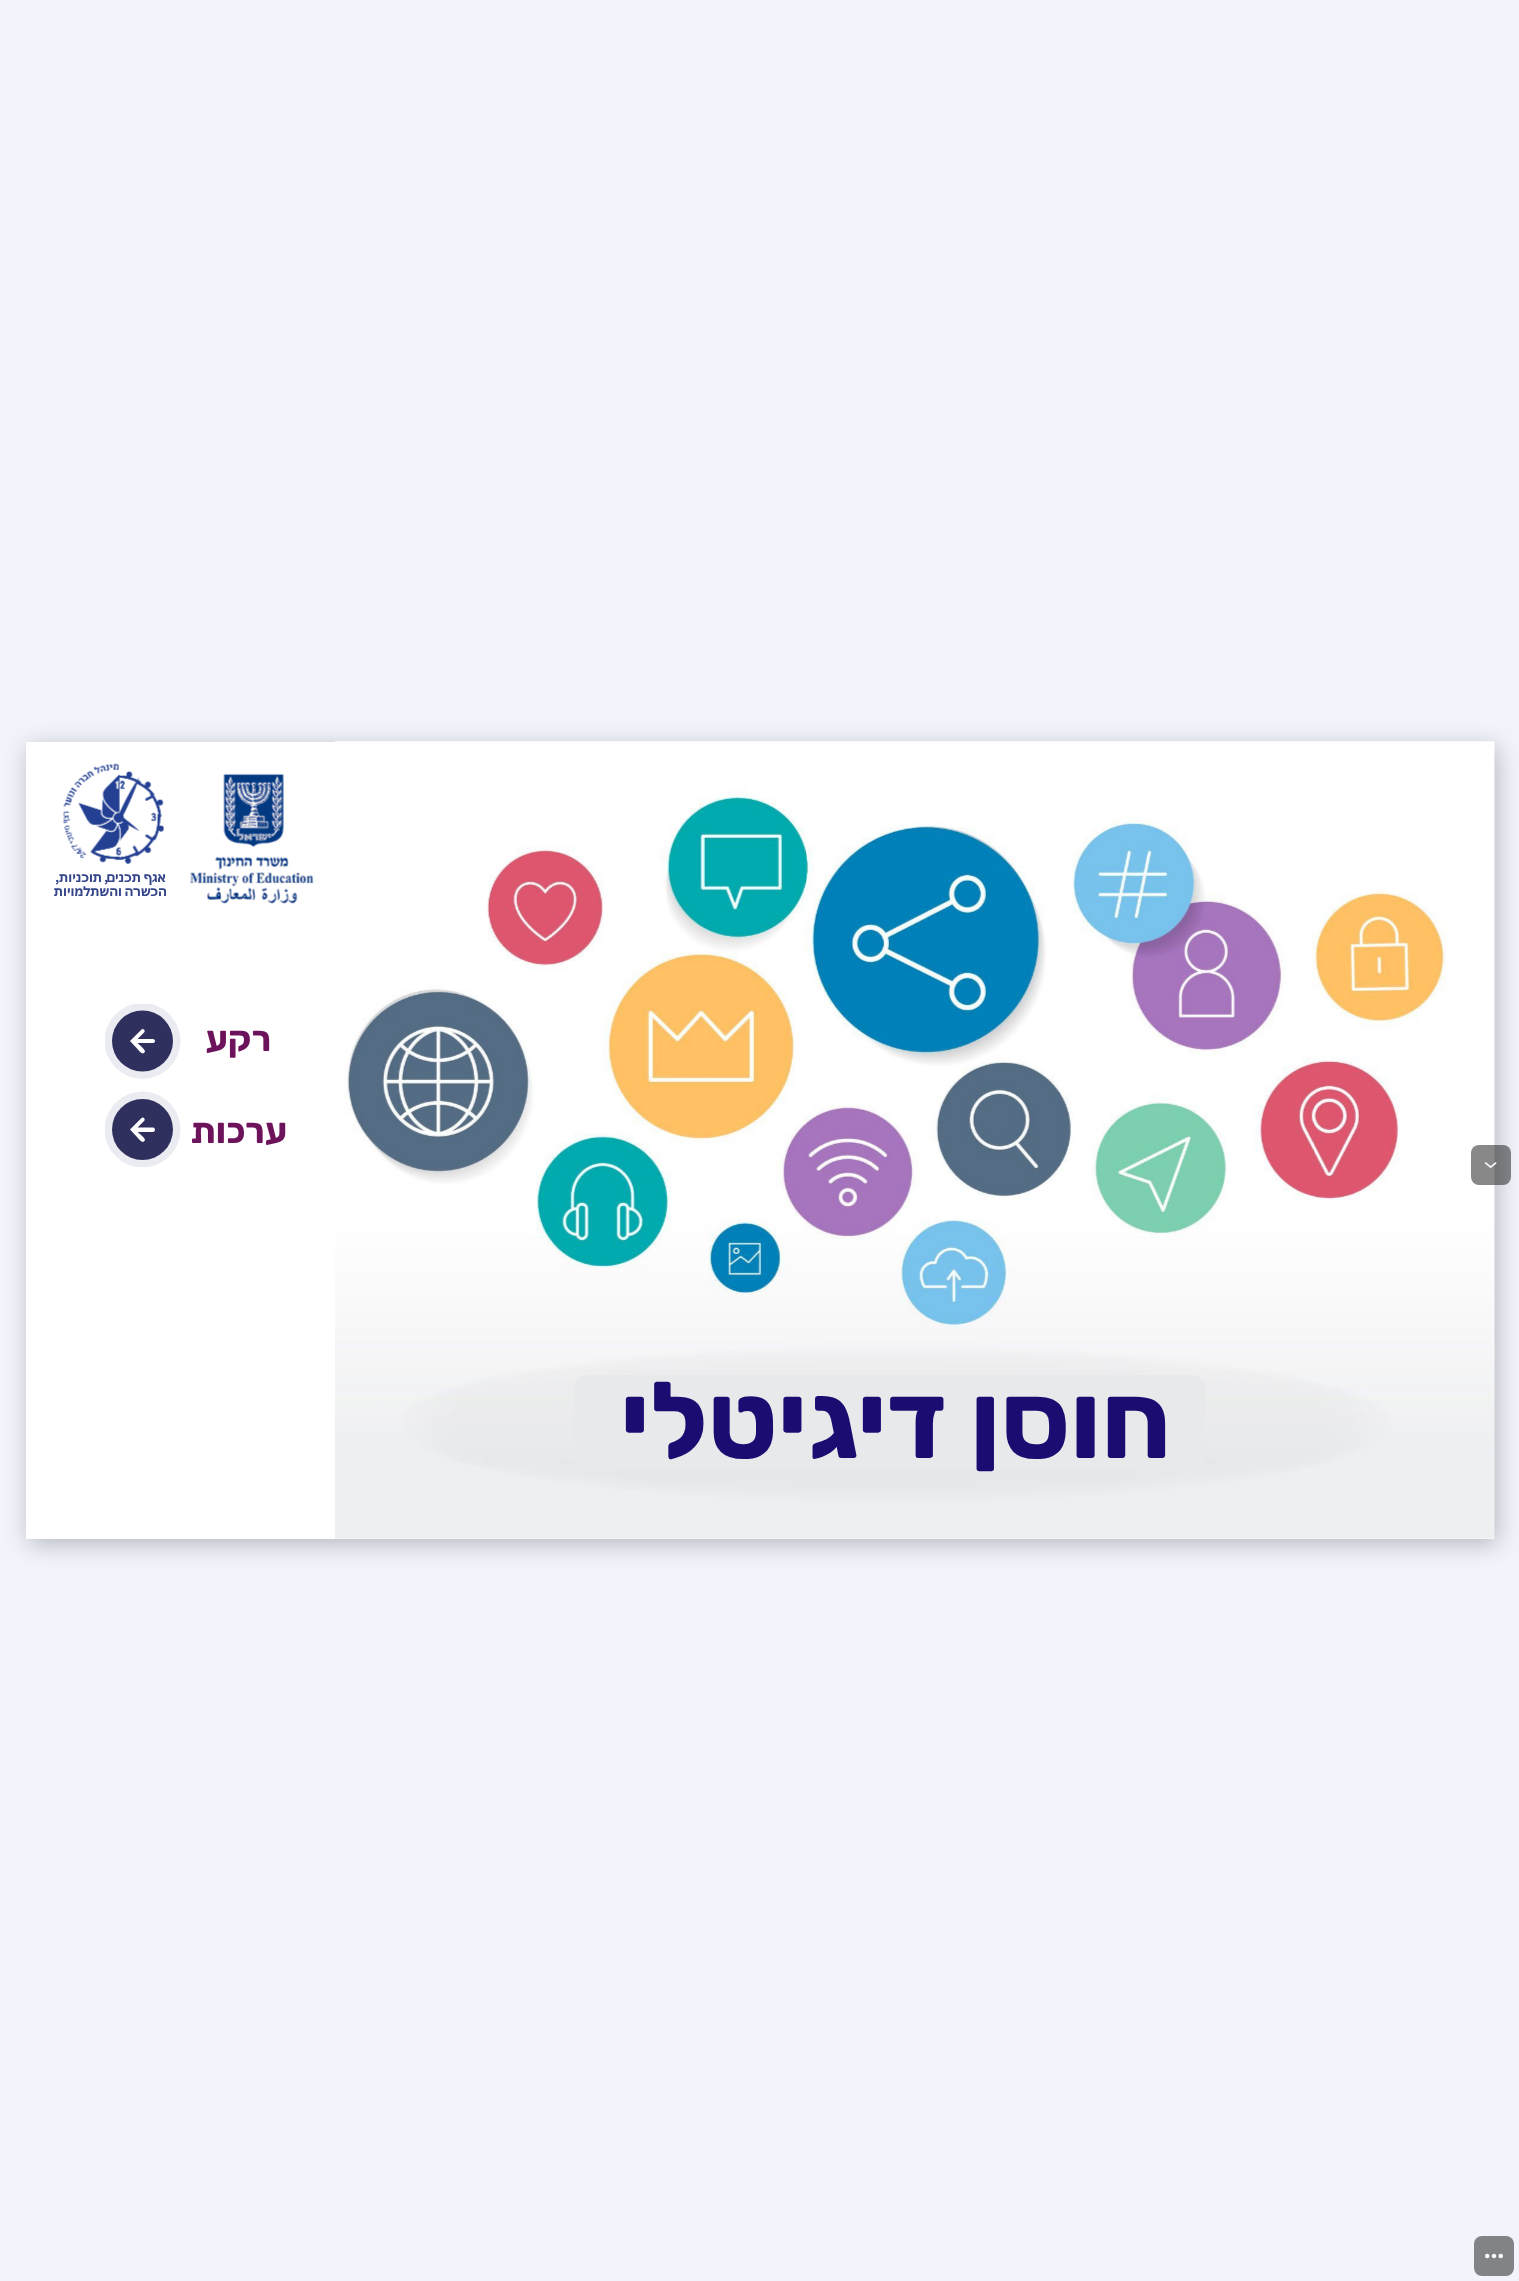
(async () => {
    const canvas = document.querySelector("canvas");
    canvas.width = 1519;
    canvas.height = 2281;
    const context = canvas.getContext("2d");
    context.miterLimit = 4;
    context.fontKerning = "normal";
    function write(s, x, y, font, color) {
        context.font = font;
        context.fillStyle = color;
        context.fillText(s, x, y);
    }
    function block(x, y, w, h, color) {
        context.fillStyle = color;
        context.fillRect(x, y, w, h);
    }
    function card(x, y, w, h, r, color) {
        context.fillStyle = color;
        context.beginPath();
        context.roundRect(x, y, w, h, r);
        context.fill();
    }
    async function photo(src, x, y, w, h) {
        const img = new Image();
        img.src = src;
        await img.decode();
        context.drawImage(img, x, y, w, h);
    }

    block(0, 0, 1519, 2281, "rgb(242, 244, 252)");
    context.fillStyle = "rgba(0, 0, 0, 0.25)";
    context.filter = "blur(11.5px)";
    context.beginPath();
    context.rect(29, 747, 1468, 797);
    context.fill();
    context.filter = "none";
    block(26, 742, 1468, 797, "rgb(255, 255, 255)");
    await photo("media/3.png", 335, 741, 1160, 798);
    card(1471, 1145, 40, 40, 8, "rgba(18, 18, 18, 0.5)");
    await photo("media/1.png", 1484, 1162, 13, 6);
    card(1474, 2236, 40, 40, 8, "rgb(130, 131, 135)");
    await photo("media/2.png", 1485, 2253, 18, 6);
    await photo("media/4.png", 189, 773, 125, 131);
    await photo("media/5.png", 63, 763, 101, 101);
    context.direction = "rtl";
    write("אגף תכנים", 166, 882, "bold 12.75px Noto Sans Hebrew", "rgb(52, 69, 138)");
    write(",", 108, 882, "bold 12.75px Source Sans Pro", "rgb(52, 69, 138)");
    write("תוכניות", 102, 882, "bold 12.75px Noto Sans Hebrew", "rgb(52, 69, 138)");
    write(",", 59, 882, "bold 12.75px Source Sans Pro", "rgb(52, 69, 138)");
    context.wordSpacing = "-1px";
    write("הכשרה והשתלמויות", 167, 896, "bold 12.75px Noto Sans Hebrew", "rgb(52, 69, 138)");
    context.wordSpacing = "0px";
    write("רקע", 271, 1051, "bold 35.5px Rubik", "rgb(109, 19, 91)");
    write("ערכות", 287, 1143, "bold 35.5px Rubik", "rgb(109, 19, 91)");
    context.save();
    context.beginPath();
    context.rect(105, 1004, 76, 76);
    context.clip();
    context.fillStyle = "rgb(235, 236, 242)";
    context.beginPath();
    context.arc(142.5, 1041, 38, 0, Math.PI * 2);
    context.fill();
    context.restore();
    context.fillStyle = "rgb(48, 48, 95)";
    context.beginPath();
    context.arc(142.5, 1041, 30.5, 0, Math.PI * 2);
    context.fill();
    context.fillStyle = "rgb(255, 255, 255)";
    context.beginPath();
    context.moveTo(141.5, 1029.5);
    context.lineTo(130, 1041);
    context.lineTo(137.5, 1049);
    context.bezierCurveTo(138.5, 1050, 141.5, 1054.5, 144, 1053);
    context.lineTo(145, 1051.5);
    context.bezierCurveTo(145, 1049.5, 139, 1044.5, 137.5, 1043);
    context.lineTo(153, 1043);
    context.bezierCurveTo(154, 1043, 155, 1042, 155, 1041);
    context.bezierCurveTo(155, 1040, 154, 1039, 153, 1039);
    context.lineTo(137.5, 1039);
    context.lineTo(144.5, 1032);
    context.bezierCurveTo(145.5, 1030, 143, 1028, 141.5, 1029.5);
    context.closePath();
    context.fill();
    context.save();
    context.beginPath();
    context.rect(105, 1091, 76, 76);
    context.clip();
    context.fillStyle = "rgb(235, 236, 242)";
    context.beginPath();
    context.arc(142.5, 1129.5, 38, 0, Math.PI * 2);
    context.fill();
    context.restore();
    context.fillStyle = "rgb(48, 48, 95)";
    context.beginPath();
    context.arc(142.5, 1129.5, 30.5, 0, Math.PI * 2);
    context.fill();
    context.fillStyle = "rgb(255, 255, 255)";
    context.beginPath();
    context.moveTo(141.5, 1118);
    context.lineTo(130, 1129.5);
    context.lineTo(137.5, 1137.5);
    context.bezierCurveTo(138.5, 1138.5, 141.5, 1143, 144, 1141.5);
    context.lineTo(145, 1140);
    context.bezierCurveTo(145, 1138, 139, 1133, 137.5, 1132);
    context.lineTo(153, 1132);
    context.bezierCurveTo(154, 1132, 155, 1131, 155, 1129.5);
    context.bezierCurveTo(155, 1128.5, 154, 1127.5, 153, 1127.5);
    context.lineTo(137.5, 1127.5);
    context.lineTo(144.5, 1120.5);
    context.bezierCurveTo(145.5, 1118.5, 143, 1116.5, 141.5, 1118);
    context.closePath();
    context.fill();
    card(574, 1375, 631, 95, 13, "rgb(232, 233, 235)");
    context.wordSpacing = "1px";
    write("חוסן דיגיטלי", 1171, 1458, "bold 107.5px Rubik", "rgb(26, 13, 114)");
})();
